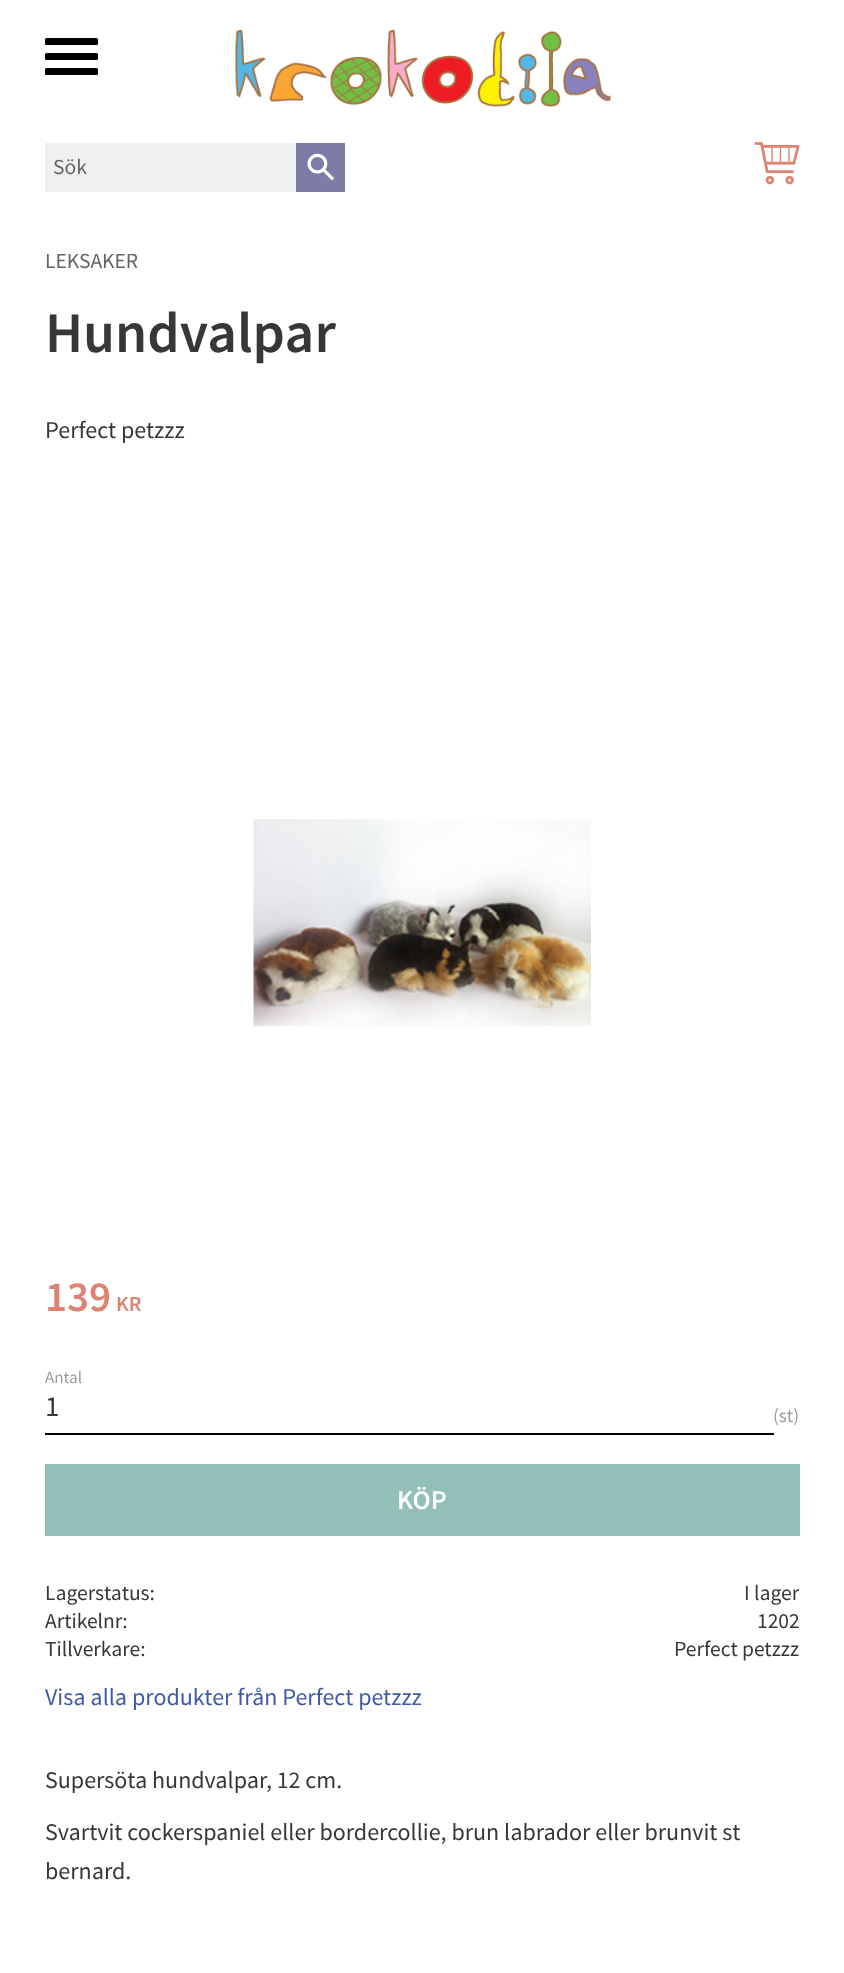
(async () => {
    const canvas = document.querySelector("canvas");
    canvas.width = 844;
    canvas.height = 1973;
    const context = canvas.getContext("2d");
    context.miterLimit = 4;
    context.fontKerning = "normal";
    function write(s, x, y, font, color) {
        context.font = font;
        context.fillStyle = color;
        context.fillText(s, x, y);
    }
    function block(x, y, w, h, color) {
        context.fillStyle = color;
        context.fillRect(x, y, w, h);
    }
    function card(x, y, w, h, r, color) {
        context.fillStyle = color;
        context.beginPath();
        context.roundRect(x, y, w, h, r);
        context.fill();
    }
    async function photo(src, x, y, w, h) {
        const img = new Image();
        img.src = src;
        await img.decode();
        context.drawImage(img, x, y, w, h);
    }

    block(0, 0, 844, 1973, "rgb(255, 255, 255)");
    card(45, 53, 53, 7, 1.5, "rgb(0, 0, 0)");
    card(45, 38, 53, 7, 1.5, "rgb(0, 0, 0)");
    card(45, 68, 53, 7, 1.5, "rgb(0, 0, 0)");
    await photo("media/1.png", 235, 30, 376, 78);
    block(45, 143, 251, 49, "rgb(240, 240, 240)");
    write("Sök", 53, 174, "21.5px Source Sans Pro", "rgb(100, 100, 100)");
    block(296, 143, 49, 49, "rgb(124, 124, 167)");
    await photo("media/2.png", 307, 153, 27, 28);
    await photo("media/3.png", 754, 142, 46, 43);
    write("LEKSAKER", 45, 268, "21.5px Source Sans Pro", "rgb(100, 100, 100)");
    write("Hundvalpar", 45, 352, "600 57.5px Source Sans Pro", "rgb(55, 55, 55)");
    write("Perfect petzzz", 45, 438, "24px Source Sans Pro", "rgb(55, 55, 55)");
    await photo("media/4.png", 253, 819, 338, 208);
    write("139", 45, 1311, "600 43px Source Sans Pro", "rgb(222, 131, 115)");
    write("KR", 116, 1311, "600 21.5px Source Sans Pro", "rgb(222, 131, 115)");
    write("Antal", 45, 1383, "17px Source Sans Pro", "rgb(155, 155, 155)");
    block(45, 1433, 729, 2, "rgb(0, 0, 0)");
    write("1", 45, 1416, "29px Source Sans Pro", "rgb(55, 55, 55)");
    write("(st)", 773, 1422, "19px Source Sans Pro", "rgb(155, 155, 155)");
    block(45, 1464, 755, 72, "rgb(147, 191, 185)");
    write("KÖP", 397, 1509, "600 27px Source Sans Pro", "rgb(255, 255, 255)");
    write("Lagerstatus:", 45, 1600, "21.5px Source Sans Pro", "rgb(55, 55, 55)");
    write("I lager", 744, 1600, "21.5px Source Sans Pro", "rgb(55, 55, 55)");
    write("Artikelnr:", 45, 1628, "21.5px Source Sans Pro", "rgb(55, 55, 55)");
    write("1202", 757, 1628, "21.5px Source Sans Pro", "rgb(55, 55, 55)");
    write("Tillverkare:", 45, 1656, "21.5px Source Sans Pro", "rgb(55, 55, 55)");
    write("Perfect petzzz", 674, 1656, "21.5px Source Sans Pro", "rgb(55, 55, 55)");
    write("Visa alla produkter från Perfect petzzz", 45, 1705, "24px Source Sans Pro", "rgb(64, 90, 167)");
    write("Supersöta hundvalpar, 12 cm.", 45, 1788, "24px Source Sans Pro", "rgb(55, 55, 55)");
    write("Svartvit cockerspaniel eller bordercollie, brun labrador eller brunvit st", 45, 1840, "24px Source Sans Pro", "rgb(55, 55, 55)");
    write("bernard.", 45, 1879, "24px Source Sans Pro", "rgb(55, 55, 55)");
})();
